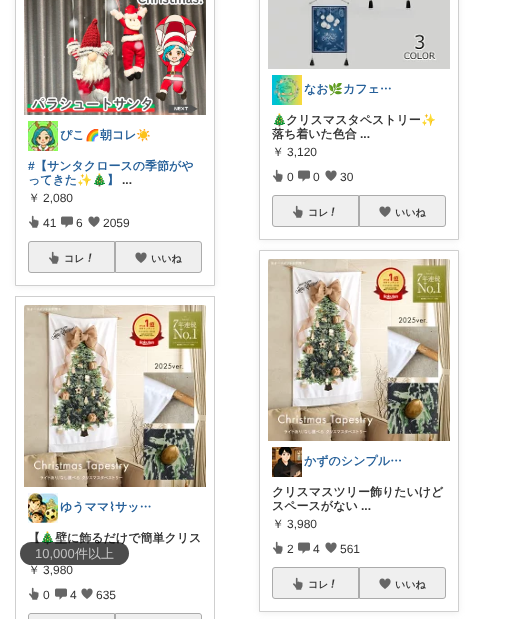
(async () => {
    const canvas = document.querySelector("canvas");
    canvas.width = 507;
    canvas.height = 619;
    const context = canvas.getContext("2d");
    context.miterLimit = 4;
    context.fontKerning = "normal";
    function write(s, x, y, font, color) {
        context.font = font;
        context.fillStyle = color;
        context.fillText(s, x, y);
    }
    function block(x, y, w, h, color) {
        context.fillStyle = color;
        context.fillRect(x, y, w, h);
    }
    function card(x, y, w, h, r, color) {
        context.fillStyle = color;
        context.beginPath();
        context.roundRect(x, y, w, h, r);
        context.fill();
    }
    async function photo(src, x, y, w, h) {
        const img = new Image();
        img.src = src;
        await img.decode();
        context.drawImage(img, x, y, w, h);
    }

    block(0, 0, 507, 619, "rgb(255, 255, 255)");
    context.fillStyle = "rgb(239, 239, 239)";
    context.filter = "blur(3px)";
    context.beginPath();
    context.roundRect(15, -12, 200, 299, 3);
    context.fill();
    context.filter = "none";
    context.fillStyle = "rgb(255, 255, 255)";
    context.beginPath();
    context.rect(15.5, -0.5, 199, 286);
    context.fill();
    context.strokeStyle = "rgb(207, 207, 207)";
    context.stroke();
    await photo("media/1.png", 24, 0, 182, 115);
    await photo("media/2.png", 28, 121, 30, 30);
    write("ぴこ", 60, 139, "bold 12px WenQuanYi Zen Hei", "rgb(38, 96, 153)");
    context.save();
    context.beginPath();
    context.rect(60, 129, 100, 13);
    context.clip();
    write("🌈", 85, 139, "bold 12px Noto Color Emoji", "rgb(38, 96, 153)");
    context.restore();
    write("朝コレ", 100, 139, "bold 12px WenQuanYi Zen Hei", "rgb(38, 96, 153)");
    context.save();
    context.beginPath();
    context.rect(60, 129, 100, 13);
    context.clip();
    write("☀️", 136, 139, "bold 12px Noto Color Emoji", "rgb(38, 96, 153)");
    context.restore();
    write("#", 28, 170, "bold 12px Liberation Sans", "rgb(38, 96, 153)");
    write("【サンタクロースの季節がや", 35, 170, "bold 12px WenQuanYi Zen Hei", "rgb(38, 96, 153)");
    write("ってきた", 28, 184, "bold 12px WenQuanYi Zen Hei", "rgb(38, 96, 153)");
    write("✨🎄", 77, 184, "bold 12px Noto Color Emoji", "rgb(38, 96, 153)");
    write("】", 107, 184, "bold 12px WenQuanYi Zen Hei", "rgb(38, 96, 153)");
    write("...", 122, 184, "bold 12px Liberation Sans", "rgb(51, 51, 51)");
    write("￥", 28, 202, "500 12px WenQuanYi Zen Hei", "rgb(51, 51, 51)");
    write("2,080", 43, 202, "12px Liberation Sans", "rgb(51, 51, 51)");
    await photo("media/3.png", 29, 215, 10, 13);
    write("41", 43, 227, "12px Liberation Sans", "rgb(51, 51, 51)");
    await photo("media/4.png", 61, 216, 12, 12);
    write("6", 76, 227, "12px Liberation Sans", "rgb(51, 51, 51)");
    await photo("media/5.png", 88, 216, 12, 11);
    write("2059", 103, 227, "12px Liberation Sans", "rgb(51, 51, 51)");
    context.fillStyle = "rgb(239, 239, 239)";
    context.beginPath();
    context.roundRect(28.5, 241.5, 86, 31, [2.5, 0, 0, 2.5]);
    context.fill();
    context.strokeStyle = "rgb(171, 171, 171)";
    context.stroke();
    await photo("media/6.png", 49, 251, 10, 13);
    write("コレ", 64, 262, "bold 10px WenQuanYi Zen Hei", "rgb(51, 51, 51)");
    await photo("media/7.png", 88, 253, 4, 9);
    context.fillStyle = "rgb(239, 239, 239)";
    context.beginPath();
    context.roundRect(115.5, 241.5, 86, 31, [0, 2.5, 2.5, 0]);
    context.fill();
    context.stroke();
    await photo("media/8.png", 135, 252, 12, 11);
    write("いいね", 151, 262, "bold 10px WenQuanYi Zen Hei", "rgb(51, 51, 51)");
    context.strokeStyle = "rgb(207, 207, 207)";
    context.strokeRect(15.5, 296.5, 199, 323);
    await photo("media/9.png", 24, 305, 182, 182);
    await photo("media/10.png", 28, 493, 30, 30);
    write("ゆうママ", 60, 511, "bold 12px WenQuanYi Zen Hei", "rgb(38, 96, 153)");
    write("⌇", 109, 511, "bold 12px DejaVu Sans", "rgb(38, 96, 153)");
    write("サッ…", 115, 511, "bold 12px WenQuanYi Zen Hei", "rgb(38, 96, 153)");
    write("【", 28, 542, "bold 12px WenQuanYi Zen Hei", "rgb(51, 51, 51)");
    write("🎄", 40, 542, "bold 12px Noto Color Emoji", "rgb(51, 51, 51)");
    write("壁に飾るだけで簡単クリス", 55, 542, "bold 12px WenQuanYi Zen Hei", "rgb(51, 51, 51)");
    write("￥", 28, 574, "500 12px WenQuanYi Zen Hei", "rgb(51, 51, 51)");
    write("3,980", 43, 574, "12px Liberation Sans", "rgb(51, 51, 51)");
    await photo("media/3.png", 29, 587, 10, 13);
    write("0", 43, 599, "12px Liberation Sans", "rgb(51, 51, 51)");
    await photo("media/4.png", 55, 588, 12, 12);
    write("4", 70, 599, "12px Liberation Sans", "rgb(51, 51, 51)");
    await photo("media/5.png", 81, 588, 12, 11);
    write("635", 96, 599, "12px Liberation Sans", "rgb(51, 51, 51)");
    context.fillStyle = "rgb(239, 239, 239)";
    context.beginPath();
    context.moveTo(31, 613.5);
    context.lineTo(114.5, 613.5);
    context.lineTo(114.5, 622.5);
    context.lineTo(31, 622.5);
    context.bezierCurveTo(29.5, 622.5, 28.5, 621.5, 28.5, 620);
    context.lineTo(28.5, 616);
    context.bezierCurveTo(28.5, 614.5, 29.5, 613.5, 31, 613.5);
    context.closePath();
    context.fill();
    context.strokeStyle = "rgb(171, 171, 171)";
    context.stroke();
    context.beginPath();
    context.moveTo(115.5, 613.5);
    context.lineTo(199, 613.5);
    context.bezierCurveTo(200.5, 613.5, 201.5, 614.5, 201.5, 616);
    context.lineTo(201.5, 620);
    context.bezierCurveTo(201.5, 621.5, 200.5, 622.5, 199, 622.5);
    context.lineTo(115.5, 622.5);
    context.closePath();
    context.fill();
    context.stroke();
    context.filter = "blur(3px)";
    context.beginPath();
    context.roundRect(259, -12, 200, 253, 3);
    context.fill();
    context.filter = "none";
    context.fillStyle = "rgb(255, 255, 255)";
    context.beginPath();
    context.rect(259.5, -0.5, 199, 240);
    context.fill();
    context.strokeStyle = "rgb(207, 207, 207)";
    context.stroke();
    await photo("media/11.png", 268, 0, 182, 69);
    await photo("media/12.png", 272, 75, 30, 30);
    write("なお", 304, 93, "bold 12px WenQuanYi Zen Hei", "rgb(38, 96, 153)");
    context.save();
    context.beginPath();
    context.rect(304, 83, 100, 13);
    context.clip();
    write("🌿", 328, 93, "bold 12px Noto Color Emoji", "rgb(38, 96, 153)");
    context.restore();
    write("カフェ…", 343, 93, "bold 12px WenQuanYi Zen Hei", "rgb(38, 96, 153)");
    write("🎄", 272, 124, "bold 12px Noto Color Emoji", "rgb(51, 51, 51)");
    write("クリスマスタペストリー", 286, 124, "bold 12px WenQuanYi Zen Hei", "rgb(51, 51, 51)");
    write("✨", 421, 124, "bold 12px Noto Color Emoji", "rgb(51, 51, 51)");
    write("落ち着いた色合", 272, 138, "bold 12px WenQuanYi Zen Hei", "rgb(51, 51, 51)");
    write("...", 360, 138, "bold 12px Liberation Sans", "rgb(51, 51, 51)");
    write("￥", 272, 156, "500 12px WenQuanYi Zen Hei", "rgb(51, 51, 51)");
    write("3,120", 287, 156, "12px Liberation Sans", "rgb(51, 51, 51)");
    await photo("media/3.png", 273, 169, 10, 13);
    write("0", 287, 181, "12px Liberation Sans", "rgb(51, 51, 51)");
    await photo("media/4.png", 298, 170, 12, 12);
    write("0", 313, 181, "12px Liberation Sans", "rgb(51, 51, 51)");
    await photo("media/5.png", 325, 170, 12, 11);
    write("30", 340, 181, "12px Liberation Sans", "rgb(51, 51, 51)");
    context.fillStyle = "rgb(239, 239, 239)";
    context.beginPath();
    context.roundRect(272.5, 195.5, 86, 31, [2.5, 0, 0, 2.5]);
    context.fill();
    context.strokeStyle = "rgb(171, 171, 171)";
    context.stroke();
    await photo("media/6.png", 293, 205, 10, 13);
    write("コレ", 308, 216, "bold 10px WenQuanYi Zen Hei", "rgb(51, 51, 51)");
    await photo("media/7.png", 331, 207, 4, 9);
    context.fillStyle = "rgb(239, 239, 239)";
    context.beginPath();
    context.roundRect(359.5, 195.5, 86, 31, [0, 2.5, 2.5, 0]);
    context.fill();
    context.stroke();
    await photo("media/8.png", 379, 206, 12, 11);
    write("いいね", 395, 216, "bold 10px WenQuanYi Zen Hei", "rgb(51, 51, 51)");
    context.fillStyle = "rgb(239, 239, 239)";
    context.filter = "blur(3px)";
    context.beginPath();
    context.roundRect(259, 251, 200, 362, 3);
    context.fill();
    context.filter = "none";
    context.fillStyle = "rgb(255, 255, 255)";
    context.beginPath();
    context.rect(259.5, 250.5, 199, 361);
    context.fill();
    context.strokeStyle = "rgb(207, 207, 207)";
    context.stroke();
    await photo("media/9.png", 268, 259, 182, 182);
    await photo("media/13.png", 272, 447, 30, 30);
    write("かずのシンプル…", 304, 465, "bold 12px WenQuanYi Zen Hei", "rgb(38, 96, 153)");
    write("クリスマスツリー飾りたいけど", 272, 496, "bold 12px WenQuanYi Zen Hei", "rgb(51, 51, 51)");
    write("スペースがない", 272, 510, "bold 12px WenQuanYi Zen Hei", "rgb(51, 51, 51)");
    write("...", 361, 510, "bold 12px Liberation Sans", "rgb(51, 51, 51)");
    write("￥", 272, 528, "500 12px WenQuanYi Zen Hei", "rgb(51, 51, 51)");
    write("3,980", 287, 528, "12px Liberation Sans", "rgb(51, 51, 51)");
    await photo("media/3.png", 273, 541, 10, 13);
    write("2", 287, 553, "12px Liberation Sans", "rgb(51, 51, 51)");
    await photo("media/4.png", 298, 542, 12, 12);
    write("4", 313, 553, "12px Liberation Sans", "rgb(51, 51, 51)");
    await photo("media/5.png", 325, 542, 12, 11);
    write("561", 340, 553, "12px Liberation Sans", "rgb(51, 51, 51)");
    context.fillStyle = "rgb(239, 239, 239)";
    context.beginPath();
    context.roundRect(272.5, 567.5, 86, 31, [2.5, 0, 0, 2.5]);
    context.fill();
    context.strokeStyle = "rgb(171, 171, 171)";
    context.stroke();
    await photo("media/6.png", 293, 577, 10, 13);
    write("コレ", 308, 588, "bold 10px WenQuanYi Zen Hei", "rgb(51, 51, 51)");
    await photo("media/7.png", 331, 579, 4, 9);
    context.fillStyle = "rgb(239, 239, 239)";
    context.beginPath();
    context.roundRect(359.5, 567.5, 86, 31, [0, 2.5, 2.5, 0]);
    context.fill();
    context.stroke();
    await photo("media/8.png", 379, 578, 12, 11);
    write("いいね", 395, 588, "bold 10px WenQuanYi Zen Hei", "rgb(51, 51, 51)");
    card(20, 542, 109, 23, 11.5, "rgba(0, 0, 0, 0.7)");
    write("10,000", 35, 558, "13px Liberation Sans", "rgb(192, 192, 192)");
    write("件", 75, 558, "500 13px WenQuanYi Zen Hei", "rgb(199, 199, 199)");
    write("以上", 88, 558, "500 13px WenQuanYi Zen Hei", "rgb(199, 199, 199)");
})();
